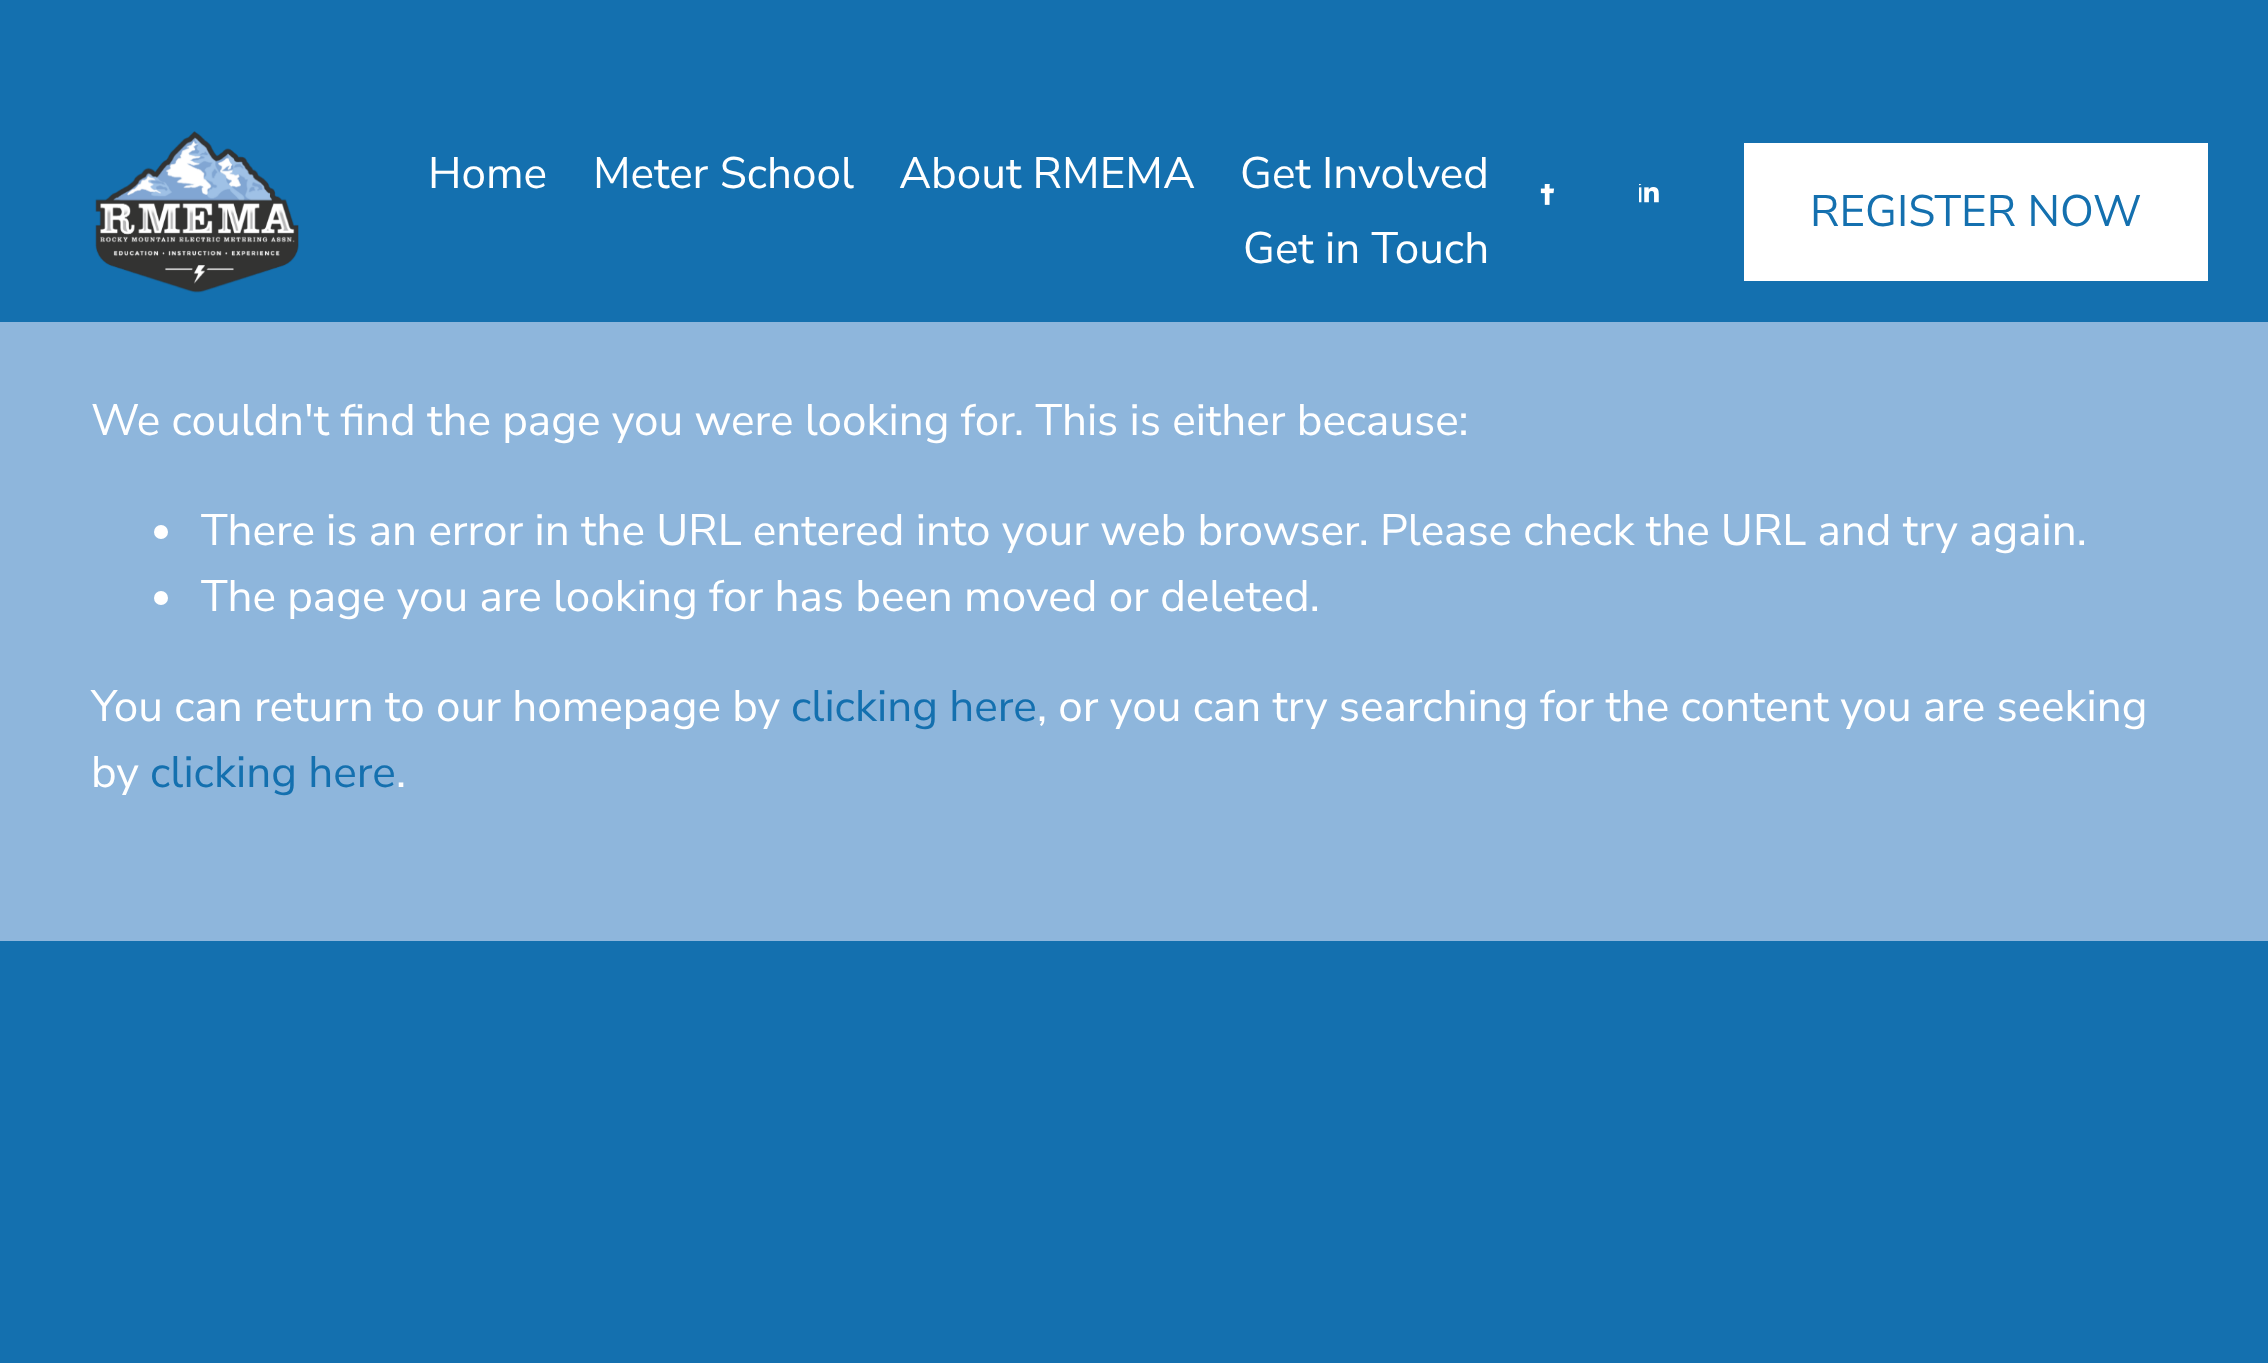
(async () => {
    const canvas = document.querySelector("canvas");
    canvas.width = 2268;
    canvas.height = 1363;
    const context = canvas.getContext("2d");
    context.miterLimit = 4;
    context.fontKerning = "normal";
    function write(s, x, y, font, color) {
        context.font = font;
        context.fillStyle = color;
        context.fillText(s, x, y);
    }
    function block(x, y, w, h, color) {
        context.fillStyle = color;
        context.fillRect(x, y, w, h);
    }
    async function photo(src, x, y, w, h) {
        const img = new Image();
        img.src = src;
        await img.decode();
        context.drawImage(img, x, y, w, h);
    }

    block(0, 0, 2268, 1363, "rgb(142, 182, 220)");
    block(0, 0, 2268, 322, "rgb(20, 112, 175)");
    await photo("media/1.png", 95, 131, 204, 162);
    write("Home", 428, 188, "44px Nunito Sans", "rgb(255, 255, 255)");
    write("Meter School", 593, 188, "44px Nunito Sans", "rgb(255, 255, 255)");
    write("About RMEMA", 899, 188, "44px Nunito Sans", "rgb(255, 255, 255)");
    write("Get Involved", 1240, 188, "44px Nunito Sans", "rgb(255, 255, 255)");
    write("Get in Touch", 1243, 263, "44px Nunito Sans", "rgb(255, 255, 255)");
    await photo("media/2.png", 1540, 184, 15, 21);
    await photo("media/3.png", 1639, 184, 20, 19);
    block(1744, 143, 464, 138, "rgb(255, 255, 255)");
    write("REGISTER NOW", 1810, 226, "44px Nunito Sans", "rgb(20, 112, 175)");
    write("We couldn't find the page you were looking for. This is either because:", 91, 435, "44px Nunito Sans", "rgb(255, 255, 255)");
    context.beginPath();
    context.arc(161, 532, 7, 0, Math.PI * 2);
    context.fill();
    write("There is an error in the URL entered into your web browser. Please check the URL and try again.", 201, 545, "44px Nunito Sans", "rgb(255, 255, 255)");
    context.beginPath();
    context.arc(161, 598, 7, 0, Math.PI * 2);
    context.fill();
    write("The page you are looking for has been moved or deleted.", 201, 611, "44px Nunito Sans", "rgb(255, 255, 255)");
    write("You can return to our homepage by", 91, 721, "44px Nunito Sans", "rgb(255, 255, 255)");
    write("clicking here", 791, 721, "44px Nunito Sans", "rgb(20, 112, 175)");
    write(", or you can try searching for the content you are seeking", 1037, 721, "44px Nunito Sans", "rgb(255, 255, 255)");
    write("by", 91, 787, "44px Nunito Sans", "rgb(255, 255, 255)");
    write("clicking here", 150, 787, "44px Nunito Sans", "rgb(20, 112, 175)");
    write(".", 396, 787, "44px Nunito Sans", "rgb(255, 255, 255)");
    block(0, 941, 2268, 422, "rgb(20, 112, 175)");
})();
